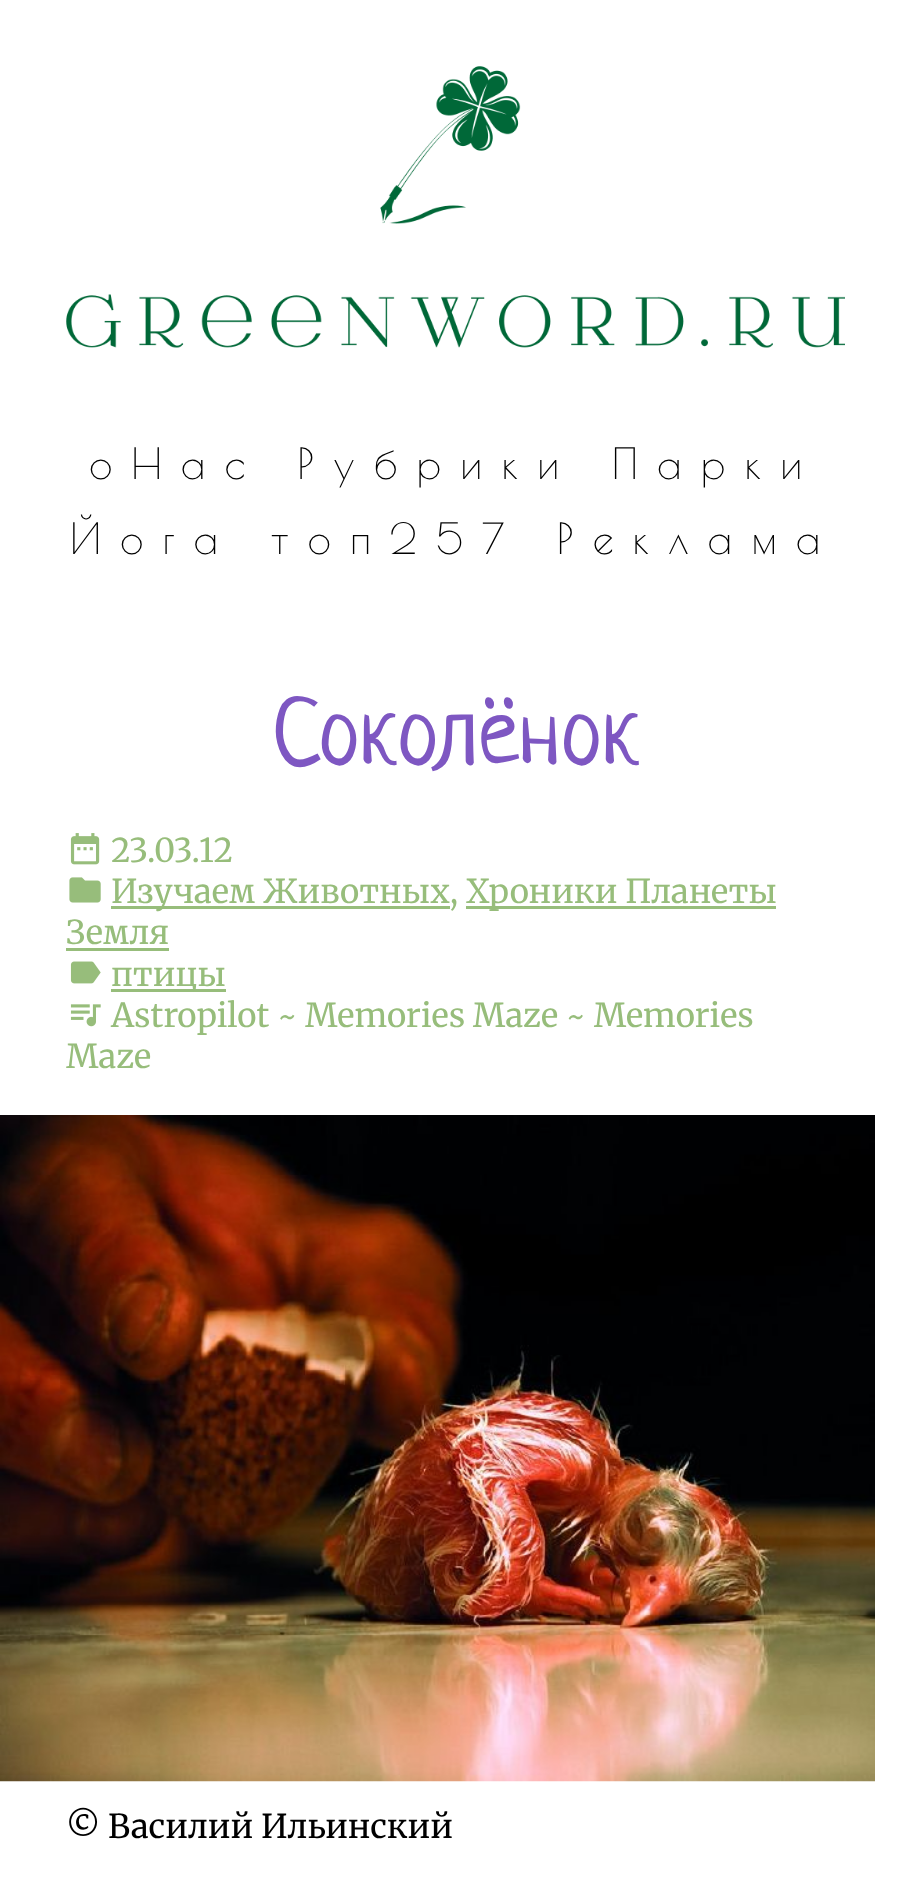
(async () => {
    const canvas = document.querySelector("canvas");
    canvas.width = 911;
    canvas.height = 1880;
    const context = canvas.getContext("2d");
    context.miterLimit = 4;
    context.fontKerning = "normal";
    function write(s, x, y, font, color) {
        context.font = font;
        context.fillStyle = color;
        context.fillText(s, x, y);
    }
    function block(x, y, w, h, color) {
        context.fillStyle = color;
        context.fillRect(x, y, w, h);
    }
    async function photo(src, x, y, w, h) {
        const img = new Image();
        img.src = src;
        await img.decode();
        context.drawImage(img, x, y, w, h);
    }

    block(0, 0, 911, 1880, "rgb(255, 255, 255)");
    await photo("media/1.png", 66, 66, 779, 282);
    context.letterSpacing = "18.75px";
    write("оНас Рубрики Парки", 89, 479, "42.25px Poiret One", "rgb(0, 0, 0)");
    write("Йога топ257 Реклама", 70, 554, "42.25px Poiret One", "rgb(0, 0, 0)");
    context.letterSpacing = "0px";
    write("Соколёнок", 272, 763, "94px Neucha", "rgb(126, 87, 194)");
    await photo("media/2.png", 70, 833, 30, 32);
    write("23.03.12", 111, 862, "300 32.9px Merriweather", "rgb(151, 189, 123)");
    await photo("media/3.png", 69, 877, 32, 26);
    block(111, 906, 339, 3, "rgb(151, 189, 123)");
    write("Изучаем Животных,", 111, 903, "300 32.9px Merriweather", "rgb(151, 189, 123)");
    block(466, 906, 310, 3, "rgb(151, 189, 123)");
    write("Хроники Планеты", 466, 903, "300 32.9px Merriweather", "rgb(151, 189, 123)");
    write("Земля", 66, 944, "300 32.9px Merriweather", "rgb(151, 189, 123)");
    block(66, 948, 103, 3, "rgb(151, 189, 123)");
    await photo("media/4.png", 70, 961, 31, 23);
    block(111, 989, 115, 3, "rgb(151, 189, 123)");
    write("птицы", 111, 986, "300 32.9px Merriweather", "rgb(151, 189, 123)");
    await photo("media/5.png", 70, 1004, 31, 23);
    write("Astropilot ~ Memories Maze ~ Memories", 111, 1027, "300 32.9px Merriweather", "rgb(151, 189, 123)");
    write("Maze", 66, 1068, "300 32.9px Merriweather", "rgb(151, 189, 123)");
    await photo("media/6.png", 0, 1115, 875, 667);
    write("© Василий Ильинский", 66, 1838, "300 32.9px Merriweather", "rgb(0, 0, 0)");
})();
